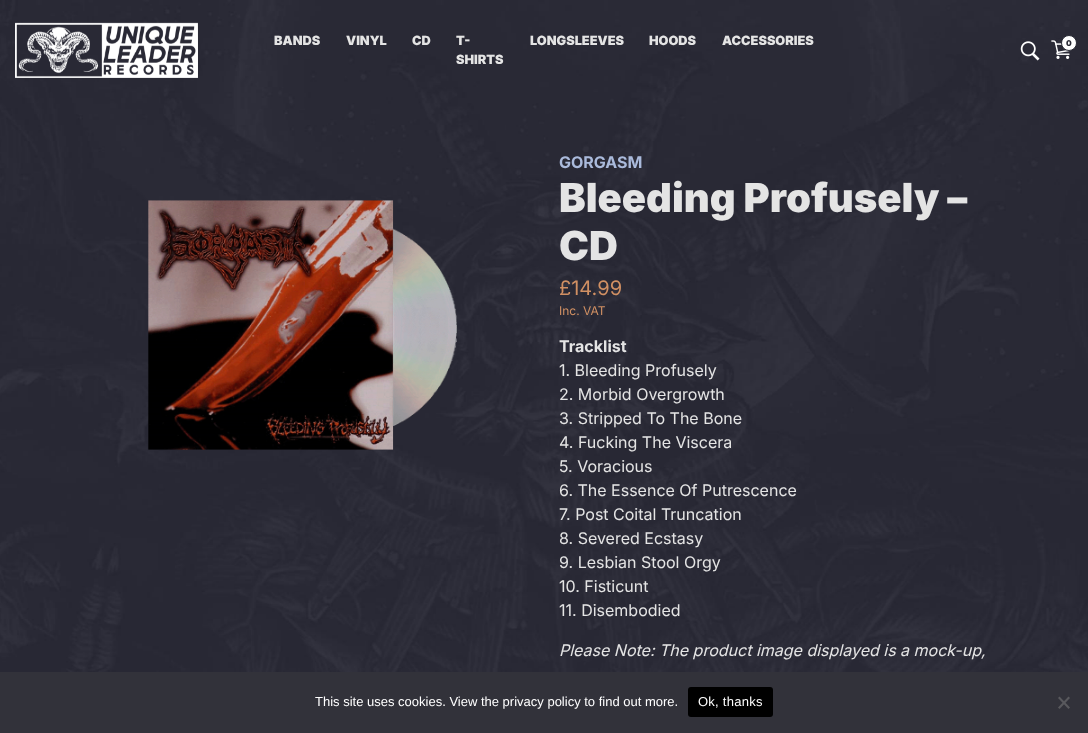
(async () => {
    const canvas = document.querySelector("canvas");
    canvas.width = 1088;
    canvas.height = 733;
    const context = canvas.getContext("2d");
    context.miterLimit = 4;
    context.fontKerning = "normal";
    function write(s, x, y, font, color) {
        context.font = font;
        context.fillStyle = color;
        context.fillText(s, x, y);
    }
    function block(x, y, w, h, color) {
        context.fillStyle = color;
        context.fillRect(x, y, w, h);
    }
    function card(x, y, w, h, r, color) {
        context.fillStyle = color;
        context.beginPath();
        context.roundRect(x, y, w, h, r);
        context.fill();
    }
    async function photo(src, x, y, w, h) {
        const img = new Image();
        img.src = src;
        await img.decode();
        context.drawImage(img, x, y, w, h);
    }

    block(0, 0, 1088, 733, "rgb(255, 255, 255)");
    await photo("media/1.png", 0, 0, 1088, 672);
    await photo("media/2.png", 15, 22, 183, 56);
    write("BANDS", 274, 45, "900 12.75px Inter", "rgb(228, 228, 228)");
    write("VINYL", 346, 45, "900 12.75px Inter", "rgb(228, 228, 228)");
    write("CD", 412, 45, "900 12.75px Inter", "rgb(228, 228, 228)");
    write("T-", 456, 45, "900 12.75px Inter", "rgb(228, 228, 228)");
    write("SHIRTS", 456, 64, "900 12.75px Inter", "rgb(228, 228, 228)");
    write("LONGSLEEVES", 530, 45, "900 12.75px Inter", "rgb(228, 228, 228)");
    write("HOODS", 649, 45, "900 12.75px Inter", "rgb(228, 228, 228)");
    write("ACCESSORIES", 722, 45, "900 12.75px Inter", "rgb(228, 228, 228)");
    await photo("media/3.png", 1020, 41, 20, 20);
    await photo("media/4.png", 1051, 40, 20, 19);
    context.fillStyle = "rgb(255, 255, 255)";
    context.beginPath();
    context.arc(1069, 43, 7.5, 0, Math.PI * 2);
    context.fill();
    context.strokeStyle = "rgb(41, 42, 53)";
    context.stroke();
    write("0", 1066, 46, "900 8px Inter", "rgb(41, 42, 53)");
    await photo("media/5.png", 148, 200, 309, 250);
    write("GORGASM", 559, 168, "bold 16px Inter", "rgb(170, 186, 219)");
    write("Bleeding Profusely –", 559, 212, "900 40px Inter", "rgb(228, 228, 228)");
    write("CD", 559, 260, "900 40px Inter", "rgb(228, 228, 228)");
    write("£14.99", 559, 295, "20px Inter", "rgb(209, 144, 99)");
    write("Inc. VAT", 559, 315, "12px Inter", "rgb(209, 144, 99)");
    write("Tracklist", 559, 352, "bold 16px Inter", "rgb(228, 228, 228)");
    write("1. Bleeding Profusely", 559, 376, "16px Inter", "rgb(228, 228, 228)");
    write("2. Morbid Overgrowth", 559, 400, "16px Inter", "rgb(228, 228, 228)");
    write("3. Stripped To The Bone", 559, 424, "16px Inter", "rgb(228, 228, 228)");
    write("4. Fucking The Viscera", 559, 448, "16px Inter", "rgb(228, 228, 228)");
    write("5. Voracious", 559, 472, "16px Inter", "rgb(228, 228, 228)");
    write("6. The Essence Of Putrescence", 559, 496, "16px Inter", "rgb(228, 228, 228)");
    write("7. Post Coital Truncation", 559, 520, "16px Inter", "rgb(228, 228, 228)");
    write("8. Severed Ecstasy", 559, 544, "16px Inter", "rgb(228, 228, 228)");
    write("9. Lesbian Stool Orgy", 559, 568, "16px Inter", "rgb(228, 228, 228)");
    write("10. Fisticunt", 559, 592, "16px Inter", "rgb(228, 228, 228)");
    write("11. Disembodied", 559, 616, "16px Inter", "rgb(228, 228, 228)");
    write("Please Note: The product image displayed is a mock-up,", 559, 656, "italic 16px Inter", "rgb(228, 228, 228)");
    block(0, 672, 1088, 61, "rgb(50, 50, 58)");
    write("This site uses cookies. View the privacy policy to find out more.", 315, 706, "13px Liberation Sans", "rgb(255, 255, 255)");
    card(688, 687, 85, 30, 3, "rgb(0, 0, 0)");
    context.letterSpacing = "0.25px";
    write("Ok, thanks", 698, 706, "13px Liberation Sans", "rgb(255, 255, 255)");
    context.fillStyle = "rgb(89, 89, 93)";
    context.beginPath();
    context.moveTo(1068.5, 696.5);
    context.lineTo(1070, 698);
    context.lineTo(1059.5, 709);
    context.lineTo(1058, 707.5);
    context.closePath();
    context.fill();
    context.beginPath();
    context.moveTo(1058, 698);
    context.lineTo(1059.5, 696.5);
    context.lineTo(1070, 707.5);
    context.lineTo(1068.5, 709);
    context.closePath();
    context.fill();
})();
